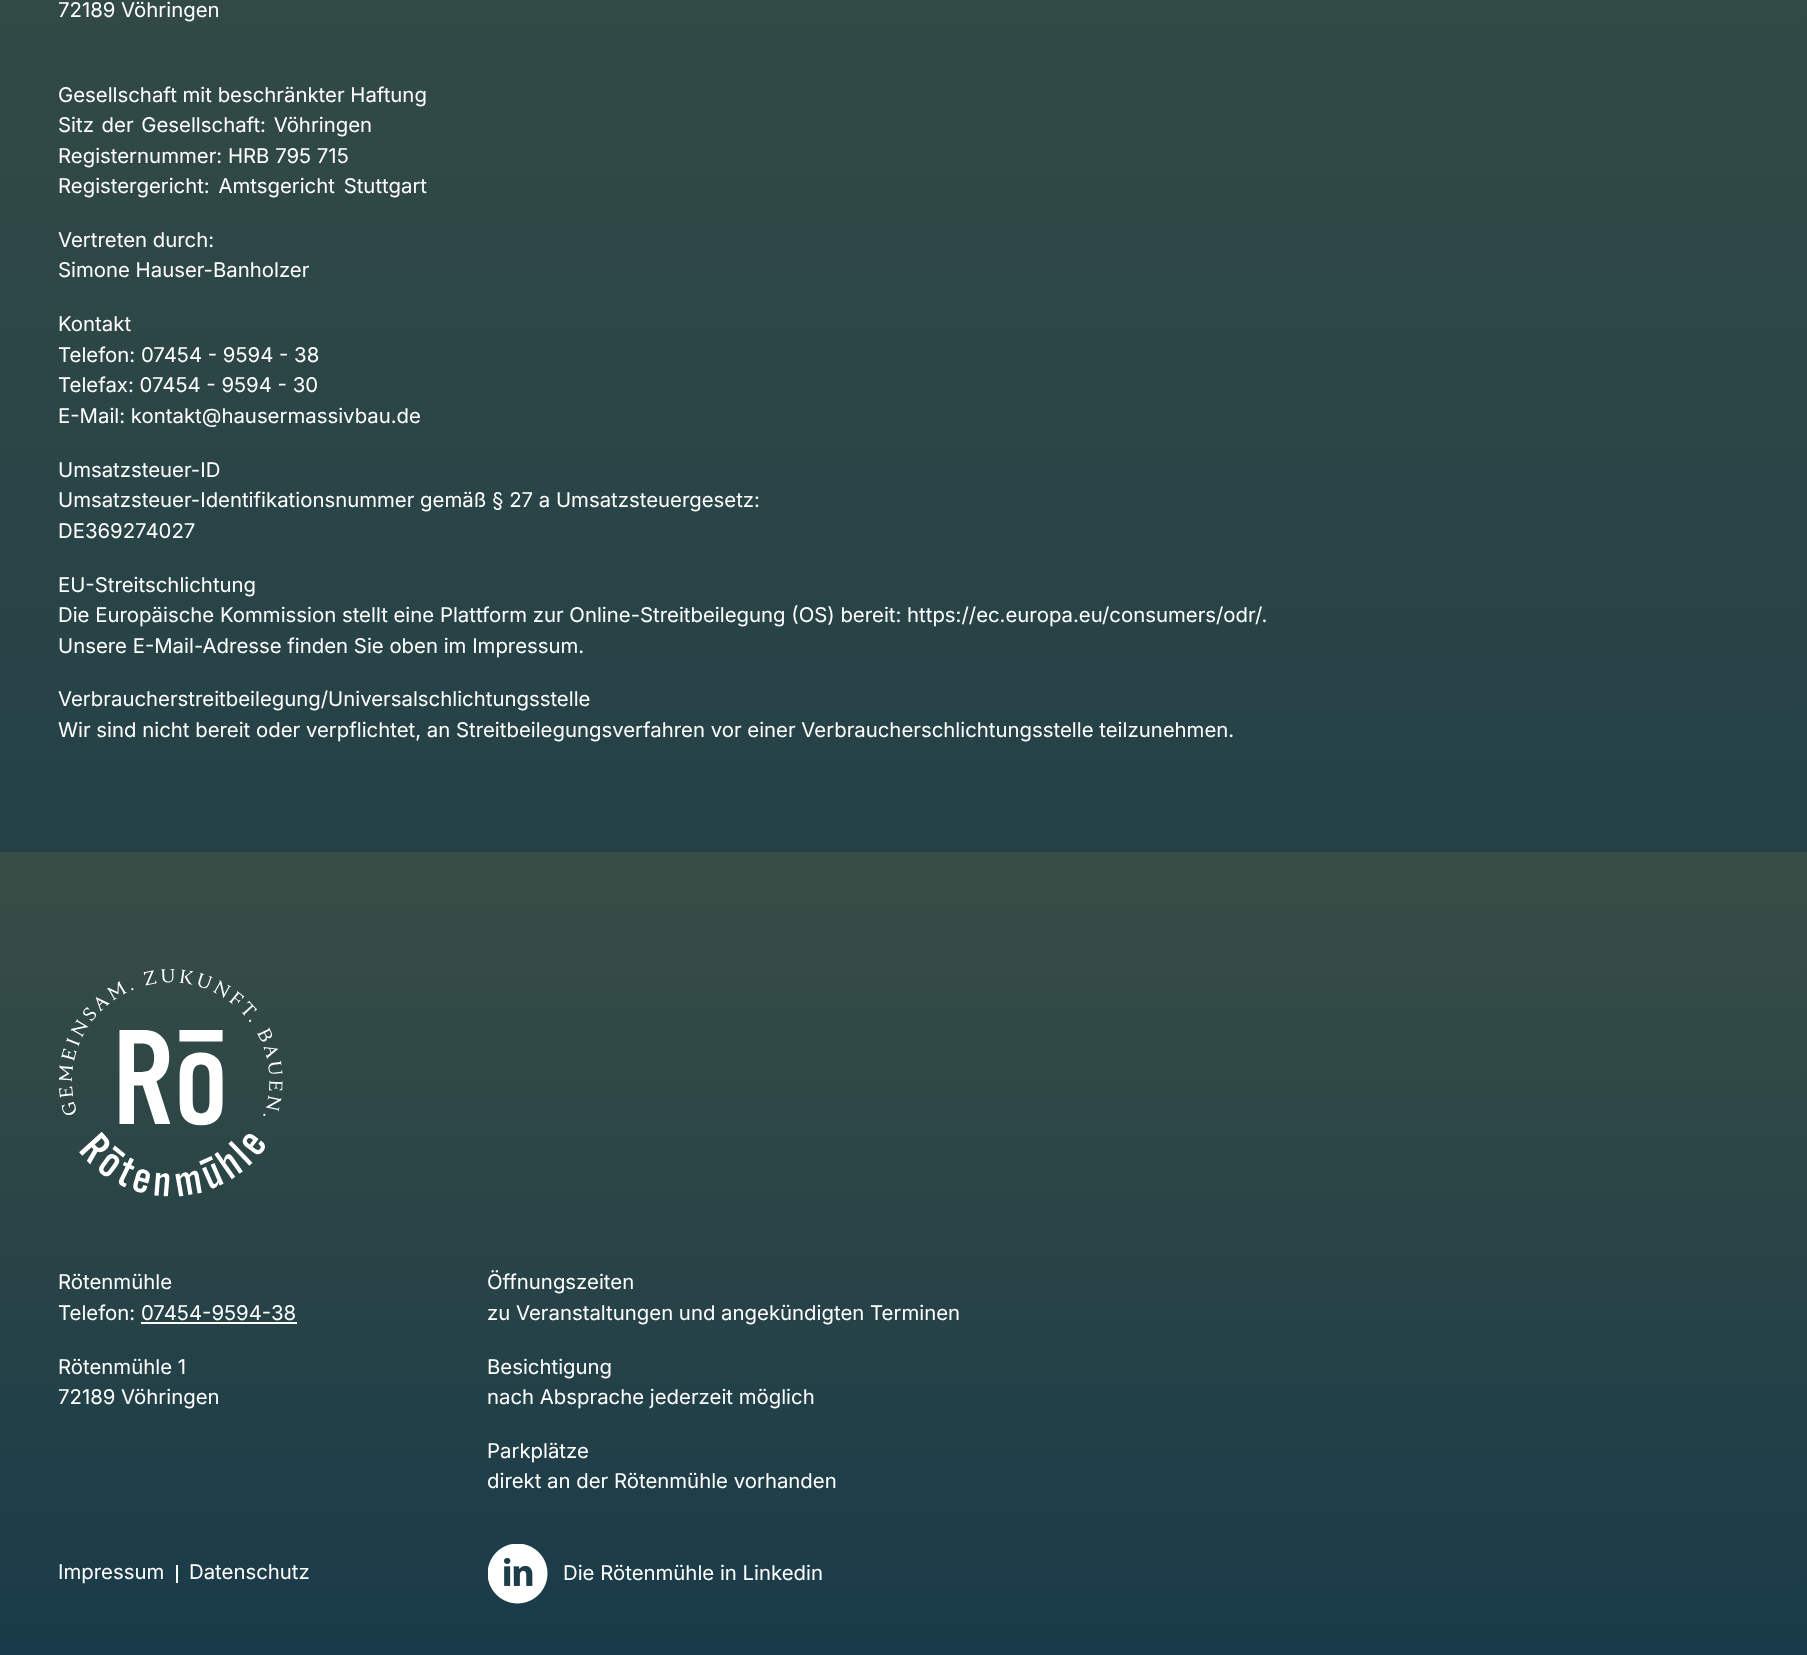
(async () => {
    const canvas = document.querySelector("canvas");
    canvas.width = 1807;
    canvas.height = 1655;
    const context = canvas.getContext("2d");
    context.miterLimit = 4;
    context.fontKerning = "normal";
    function write(s, x, y, font, color) {
        context.font = font;
        context.fillStyle = color;
        context.fillText(s, x, y);
    }
    function block(x, y, w, h, color) {
        context.fillStyle = color;
        context.fillRect(x, y, w, h);
    }
    async function photo(src, x, y, w, h) {
        const img = new Image();
        img.src = src;
        await img.decode();
        context.drawImage(img, x, y, w, h);
    }
    let gradient;

    block(0, 0, 1807, 1655, "rgb(255, 255, 255)");
    gradient = context.createLinearGradient(904, -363, 904, 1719);
    gradient.addColorStop(0, "rgb(56, 77, 69)");
    gradient.addColorStop(1, "rgb(22, 57, 73)");
    context.fillStyle = gradient;
    context.fillRect(0, 0, 1807, 852);
    write("72189 Vöhringen", 58, 17, "20.35px Inter", "rgb(255, 255, 255)");
    write("Gesellschaft mit beschränkter Haftung", 58, 102, "20.35px Inter", "rgb(255, 255, 255)");
    context.wordSpacing = "2px";
    write("Sitz der Gesellschaft: Vöhringen", 58, 132, "20.35px Inter", "rgb(255, 255, 255)");
    context.wordSpacing = "0px";
    write("Registernummer: HRB 795 715", 58, 163, "20.35px Inter", "rgb(255, 255, 255)");
    context.wordSpacing = "3px";
    write("Registergericht: Amtsgericht Stuttgart", 58, 193, "20.35px Inter", "rgb(255, 255, 255)");
    context.wordSpacing = "0px";
    write("Vertreten durch:", 58, 247, "20.35px Inter", "rgb(255, 255, 255)");
    write("Simone Hauser-Banholzer", 58, 277, "20.35px Inter", "rgb(255, 255, 255)");
    write("Kontakt", 58, 331, "20.35px Inter", "rgb(255, 255, 255)");
    write("Telefon: 07454 - 9594 - 38", 58, 362, "20.35px Inter", "rgb(255, 255, 255)");
    write("Telefax: 07454 - 9594 - 30", 58, 392, "20.35px Inter", "rgb(255, 255, 255)");
    write("E-Mail: kontakt@hausermassivbau.de", 58, 423, "20.35px Inter", "rgb(255, 255, 255)");
    write("Umsatzsteuer-ID", 58, 477, "20.35px Inter", "rgb(255, 255, 255)");
    write("Umsatzsteuer-Identifikationsnummer gemäß § 27 a Umsatzsteuergesetz:", 58, 507, "20.35px Inter", "rgb(255, 255, 255)");
    write("DE369274027", 58, 538, "20.35px Inter", "rgb(255, 255, 255)");
    write("EU-Streitschlichtung", 58, 592, "20.35px Inter", "rgb(255, 255, 255)");
    write("Die Europäische Kommission stellt eine Plattform zur Online-Streitbeilegung (OS) bereit: https://ec.europa.eu/consumers/odr/.", 58, 622, "20.35px Inter", "rgb(255, 255, 255)");
    write("Unsere E-Mail-Adresse finden Sie oben im Impressum.", 58, 653, "20.35px Inter", "rgb(255, 255, 255)");
    write("Verbraucherstreitbeilegung/Universalschlichtungsstelle", 58, 706, "20.35px Inter", "rgb(255, 255, 255)");
    write("Wir sind nicht bereit oder verpflichtet, an Streitbeilegungsverfahren vor einer Verbraucherschlichtungsstelle teilzunehmen.", 58, 737, "20.35px Inter", "rgb(255, 255, 255)");
    gradient = context.createLinearGradient(904, 852, 904, 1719);
    gradient.addColorStop(0, "rgb(56, 77, 69)");
    gradient.addColorStop(1, "rgb(22, 57, 73)");
    context.fillStyle = gradient;
    context.fillRect(0, 852, 1807, 803);
    await photo("media/1.png", 59, 969, 224, 228);
    write("Rötenmühle", 58, 1289, "20.35px Inter", "rgb(255, 255, 255)");
    write("Telefon: 07454-9594-38", 58, 1320, "20.35px Inter", "rgb(255, 255, 255)");
    block(141, 1322, 156, 2, "rgb(255, 255, 255)");
    write("Rötenmühle 1", 58, 1374, "20.35px Inter", "rgb(255, 255, 255)");
    write("72189 Vöhringen", 58, 1404, "20.35px Inter", "rgb(255, 255, 255)");
    write("Öffnungszeiten", 487, 1289, "20.35px Inter", "rgb(255, 255, 255)");
    write("zu Veranstaltungen und angekündigten Terminen", 487, 1320, "20.35px Inter", "rgb(255, 255, 255)");
    write("Besichtigung", 487, 1374, "20.35px Inter", "rgb(255, 255, 255)");
    write("nach Absprache jederzeit möglich", 487, 1404, "20.35px Inter", "rgb(255, 255, 255)");
    write("Parkplätze", 487, 1458, "20.35px Inter", "rgb(255, 255, 255)");
    write("direkt an der Rötenmühle vorhanden", 487, 1488, "20.35px Inter", "rgb(255, 255, 255)");
    block(176, 1565, 2, 18, "rgb(255, 255, 255)");
    write("Impressum", 58, 1579, "20.35px Inter", "rgb(255, 255, 255)");
    write("Datenschutz", 189, 1579, "20.35px Inter", "rgb(255, 255, 255)");
    await photo("media/2.png", 488, 1544, 60, 60);
    write("Die Rötenmühle in Linkedin", 563, 1580, "20.35px Inter", "rgb(255, 255, 255)");
})();
